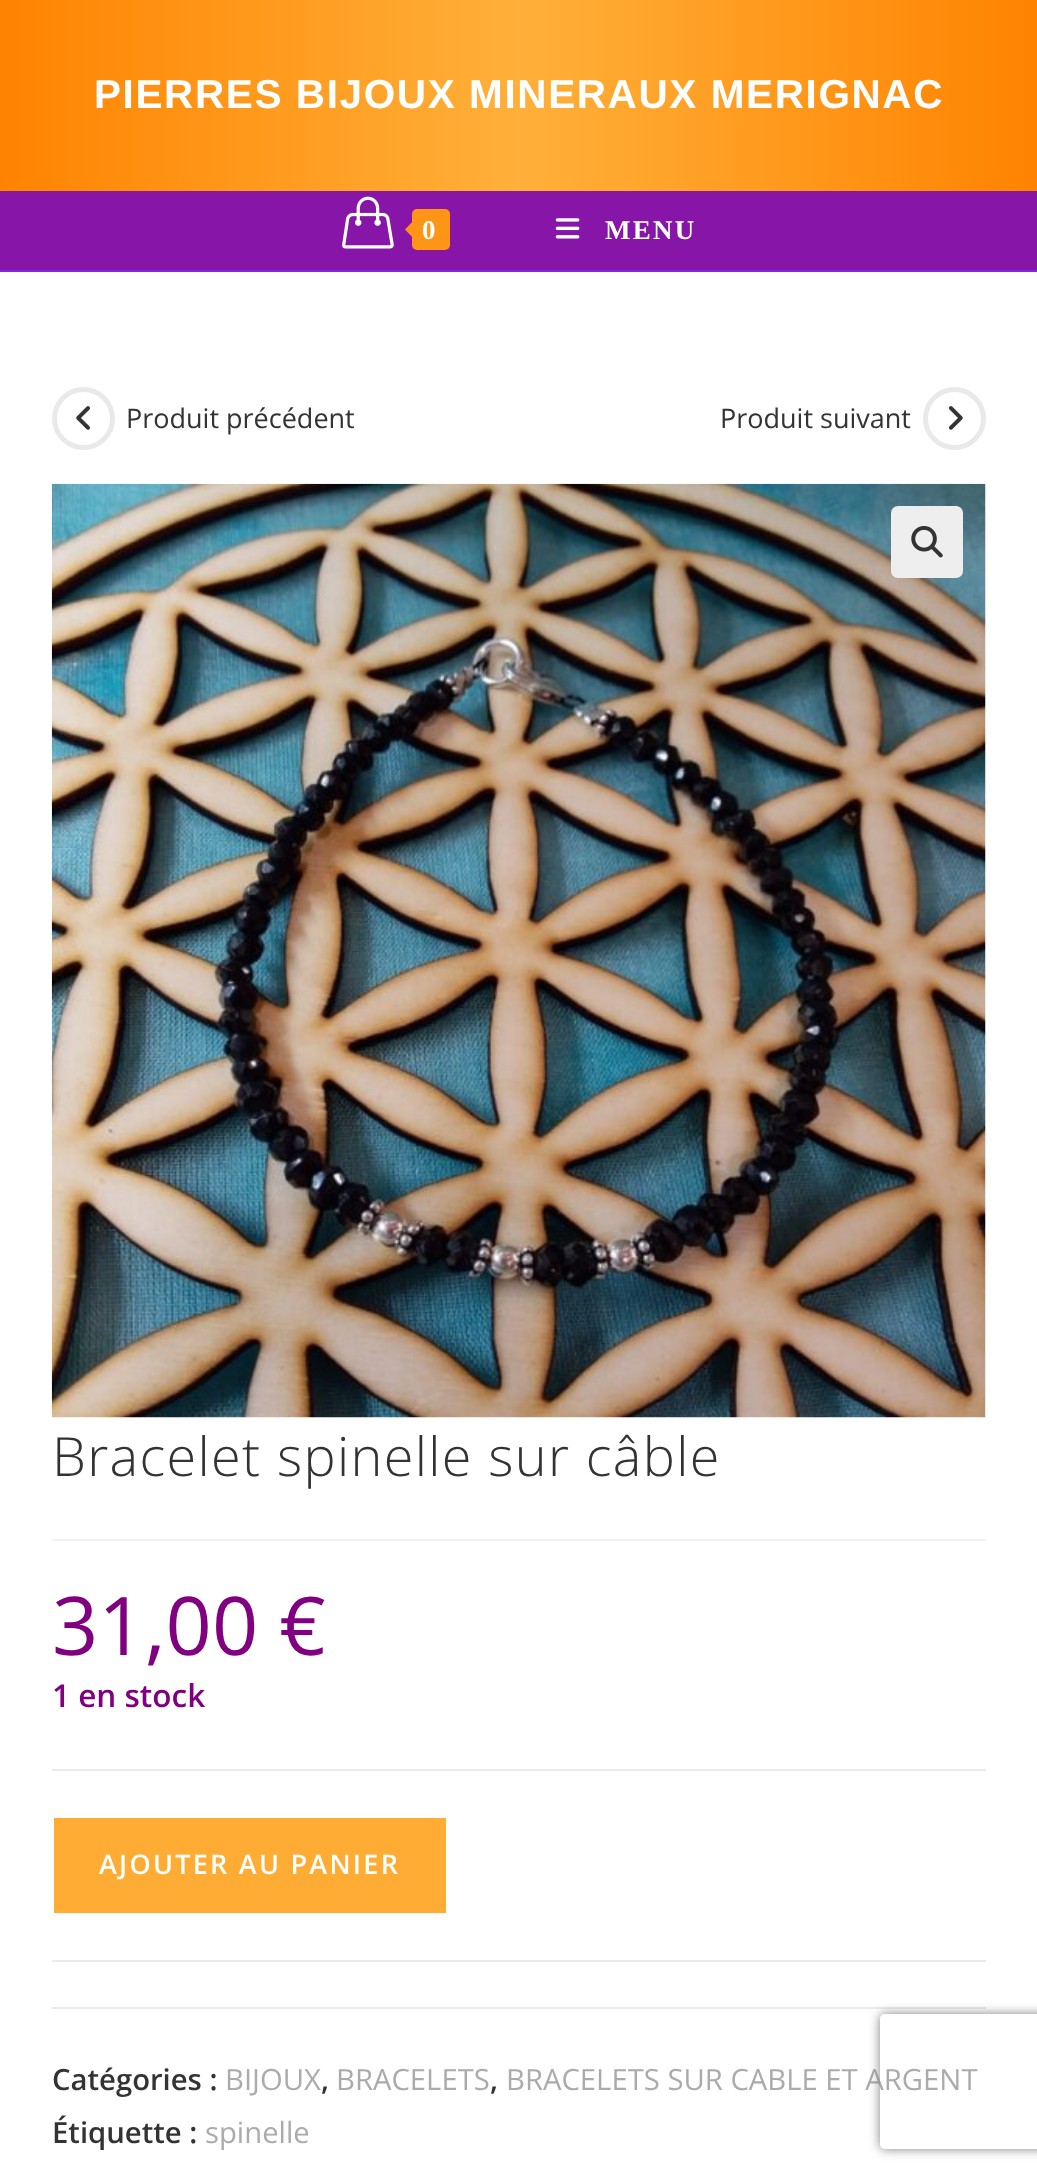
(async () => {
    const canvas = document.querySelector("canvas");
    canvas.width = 1037;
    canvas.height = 2180;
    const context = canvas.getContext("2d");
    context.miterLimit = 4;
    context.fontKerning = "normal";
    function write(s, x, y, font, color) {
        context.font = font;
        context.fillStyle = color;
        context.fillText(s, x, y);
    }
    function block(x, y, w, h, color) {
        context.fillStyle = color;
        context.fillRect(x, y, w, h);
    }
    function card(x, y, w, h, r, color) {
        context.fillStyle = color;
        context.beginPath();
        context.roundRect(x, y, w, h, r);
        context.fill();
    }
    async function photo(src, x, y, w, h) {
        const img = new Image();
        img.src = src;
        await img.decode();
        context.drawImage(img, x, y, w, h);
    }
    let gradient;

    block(0, 0, 1037, 2180, "rgb(255, 255, 255)");
    block(0, 270, 1037, 2, "rgb(130, 36, 227)");
    gradient = context.createLinearGradient(0, 96, 1037, 96);
    gradient.addColorStop(0, "rgb(255, 131, 0)");
    gradient.addColorStop(0.5, "rgb(255, 176, 58)");
    gradient.addColorStop(1, "rgb(255, 131, 0)");
    context.fillStyle = gradient;
    context.fillRect(0, 0, 1037, 191);
    context.letterSpacing = "1.6px";
    write("PIERRES BIJOUX MINERAUX MERIGNAC", 94, 108, "bold 40.5px Liberation Sans", "rgb(255, 255, 255)");
    block(0, 191, 1037, 79, "rgb(134, 21, 168)");
    await photo("media/1.png", 342, 196, 52, 53);
    card(412, 209, 38, 41, 5, "rgb(255, 149, 23)");
    context.beginPath();
    context.moveTo(416, 218);
    context.lineTo(416, 241);
    context.lineTo(405, 229.5);
    context.closePath();
    context.fill();
    context.letterSpacing = "2.25px";
    write("0", 422, 239, "bold 27px Liberation Serif", "rgb(255, 255, 255)");
    await photo("media/2.png", 555, 218, 25, 21);
    write("MENU", 605, 239, "bold 27px Liberation Serif", "rgb(255, 255, 255)");
    context.beginPath();
    context.arc(83.5, 418.5, 29, 0, Math.PI * 2);
    context.strokeStyle = "rgb(233, 233, 233)";
    context.lineWidth = 5;
    context.stroke();
    await photo("media/3.png", 76, 406, 14, 24);
    context.letterSpacing = "0px";
    write("Produit précédent", 126, 428, "27px Open Sans", "rgb(51, 51, 51)");
    write("Produit suivant", 720, 428, "27px Open Sans", "rgb(51, 51, 51)");
    context.beginPath();
    context.arc(954.5, 418.5, 29, 0, Math.PI * 2);
    context.stroke();
    await photo("media/4.png", 949, 406, 14, 24);
    await photo("media/5.png", 51, 483, 935, 935);
    card(891, 506, 72, 72, 7, "rgb(238, 238, 238)");
    await photo("media/6.png", 911, 525, 32, 33);
    block(52, 1539, 934, 2, "rgb(241, 241, 241)");
    context.letterSpacing = "1.35px";
    write("Bracelet spinelle sur câble", 52, 1476, "300 54px Open Sans", "rgb(51, 51, 51)");
    context.letterSpacing = "0px";
    write("31,00 €", 52, 1655, "81px Open Sans", "rgb(128, 0, 128)");
    write("1 en stock", 52, 1707, "600 31.5px Open Sans", "rgb(128, 0, 128)");
    block(52, 1769, 934, 2, "rgb(234, 234, 234)");
    block(52, 1960, 934, 2, "rgb(234, 234, 234)");
    block(54, 1818, 392, 95, "rgb(255, 172, 53)");
    context.letterSpacing = "2.25px";
    write("AJOUTER AU PANIER", 99, 1874, "600 27px Open Sans", "rgb(255, 255, 255)");
    block(52, 2007, 934, 2, "rgb(234, 234, 234)");
    context.letterSpacing = "0px";
    write("Catégories :", 52, 2090, "600 29.25px Open Sans", "rgb(51, 51, 51)");
    write("BIJOUX", 225, 2090, "29.25px Open Sans", "rgb(171, 171, 171)");
    write(",", 321, 2090, "600 29.25px Open Sans", "rgb(51, 51, 51)");
    write("BRACELETS", 336, 2090, "29.25px Open Sans", "rgb(171, 171, 171)");
    write(",", 490, 2090, "600 29.25px Open Sans", "rgb(51, 51, 51)");
    write("BRACELETS SUR CABLE ET ARGENT", 506, 2090, "29.25px Open Sans", "rgb(171, 171, 171)");
    write("Étiquette :", 52, 2143, "600 29.25px Open Sans", "rgb(51, 51, 51)");
    write("spinelle", 205, 2143, "29.25px Open Sans", "rgb(171, 171, 171)");
    context.save();
    context.beginPath();
    context.moveTo(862, 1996);
    context.lineTo(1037, 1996);
    context.lineTo(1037, 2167);
    context.lineTo(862, 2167);
    context.closePath();
    context.moveTo(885, 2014);
    context.lineTo(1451, 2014);
    context.bezierCurveTo(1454, 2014, 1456, 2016, 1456, 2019);
    context.lineTo(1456, 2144);
    context.bezierCurveTo(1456, 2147, 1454, 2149, 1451, 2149);
    context.lineTo(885, 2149);
    context.bezierCurveTo(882, 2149, 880, 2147, 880, 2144);
    context.lineTo(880, 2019);
    context.bezierCurveTo(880, 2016, 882, 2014, 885, 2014);
    context.closePath();
    context.clip("evenodd");
    context.fillStyle = "rgb(128, 128, 128)";
    context.filter = "blur(5.5px)";
    context.beginPath();
    context.roundRect(880, 2014, 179, 135, 5);
    context.fill();
    context.filter = "none";
    context.restore();
})();
